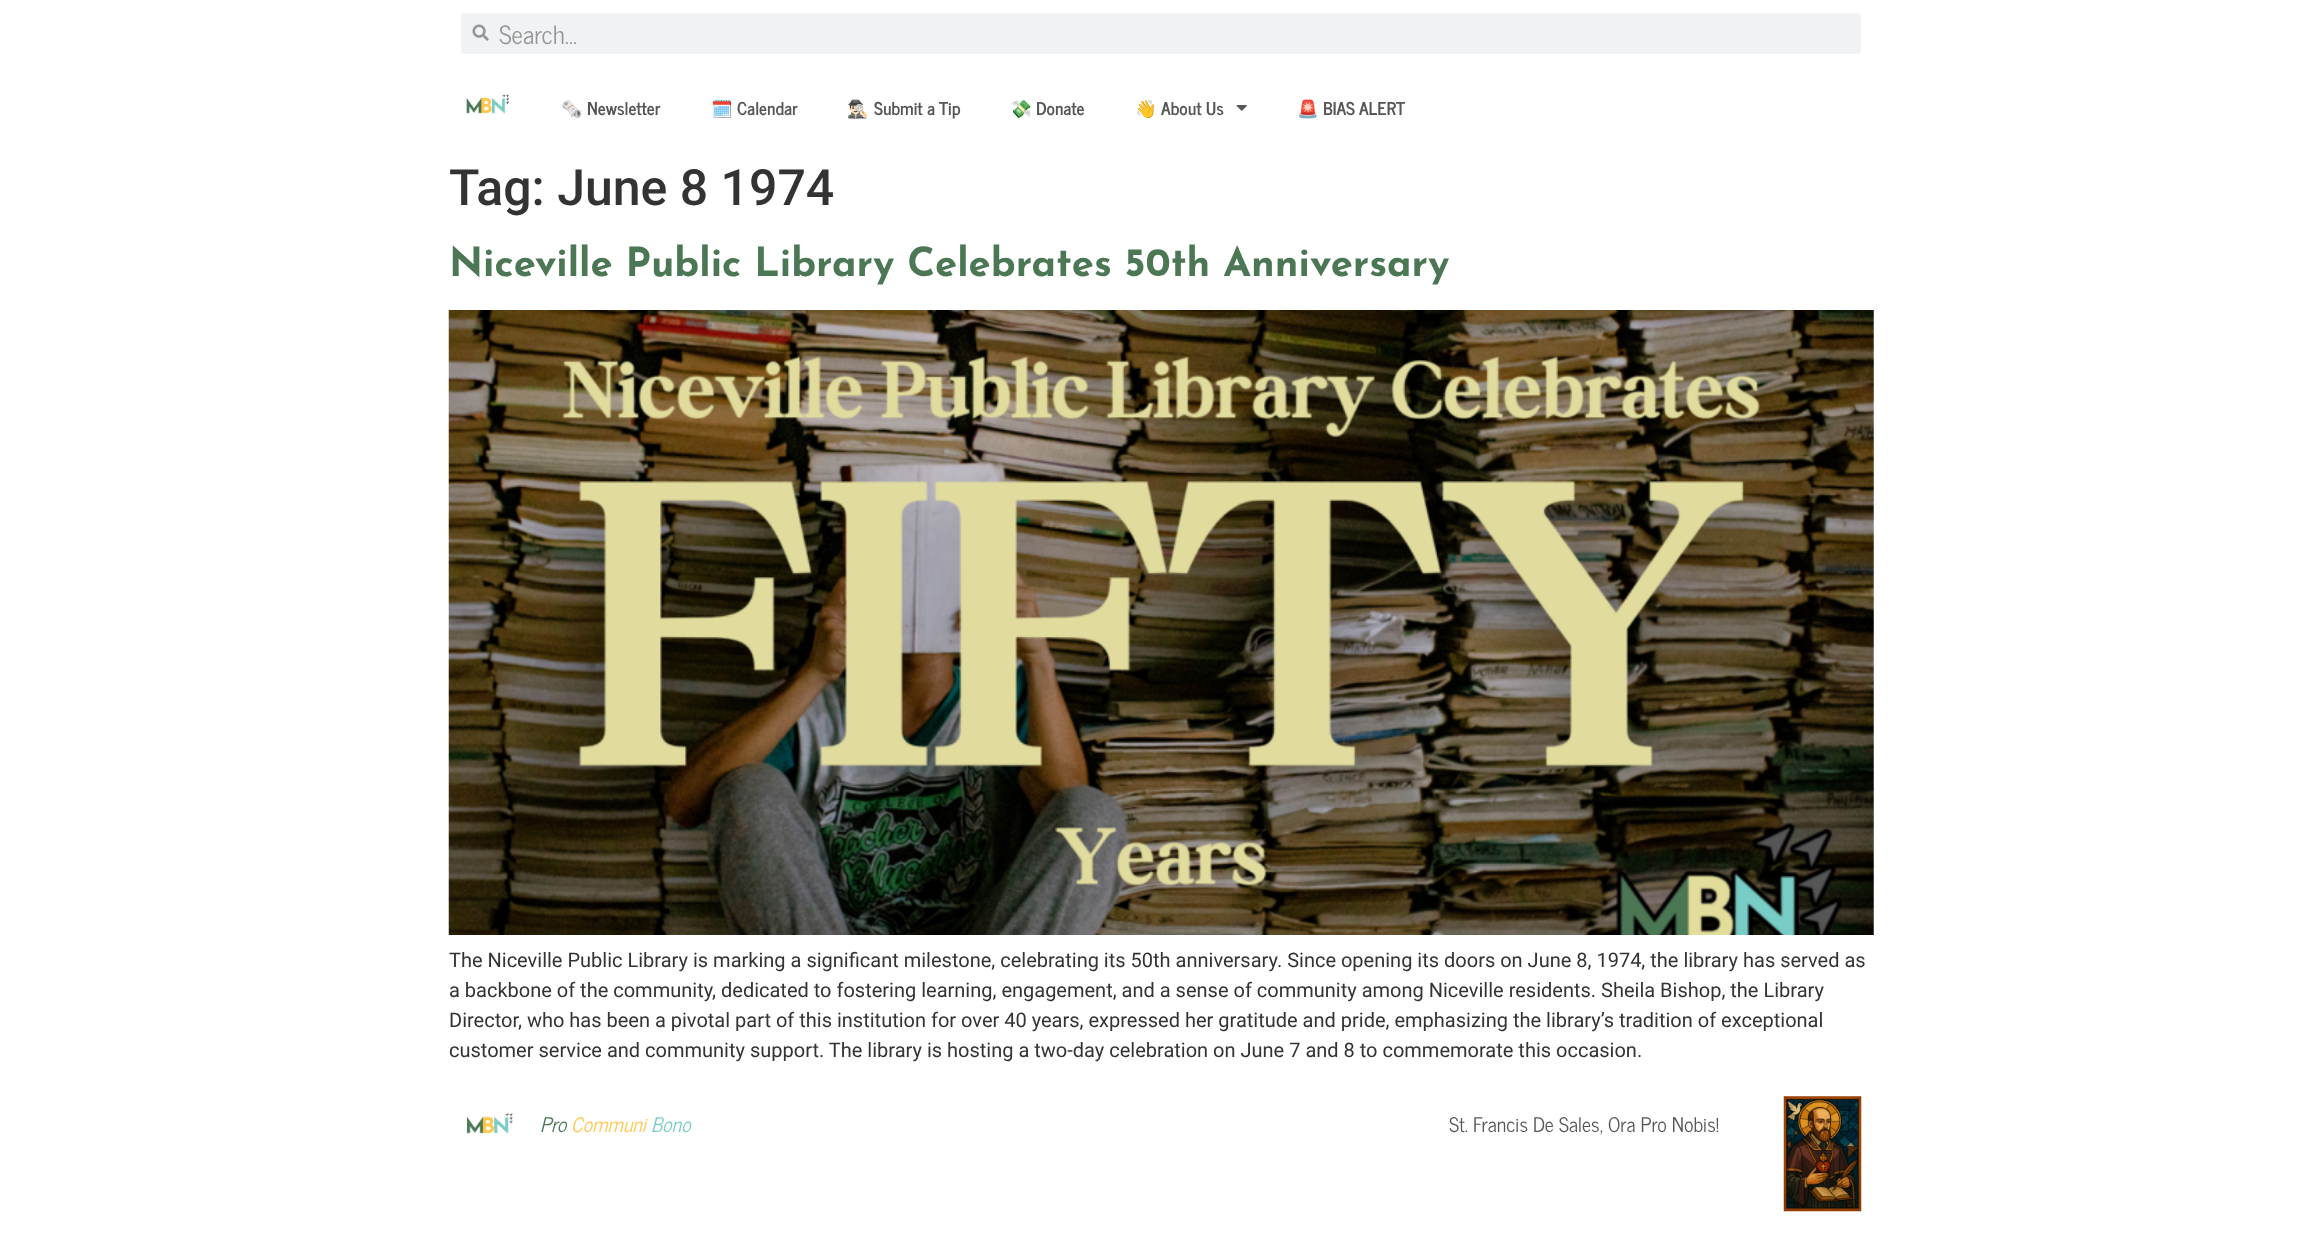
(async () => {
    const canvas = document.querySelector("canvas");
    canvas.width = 2322;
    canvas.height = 1246;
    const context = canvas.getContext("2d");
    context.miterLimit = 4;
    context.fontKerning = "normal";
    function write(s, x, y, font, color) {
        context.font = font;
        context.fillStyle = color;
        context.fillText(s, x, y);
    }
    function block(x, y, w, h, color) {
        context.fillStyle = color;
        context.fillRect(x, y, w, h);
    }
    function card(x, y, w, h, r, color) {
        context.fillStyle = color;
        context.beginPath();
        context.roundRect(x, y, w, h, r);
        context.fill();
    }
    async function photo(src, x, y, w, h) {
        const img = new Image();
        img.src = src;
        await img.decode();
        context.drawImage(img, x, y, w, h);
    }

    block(0, 0, 2322, 1246, "rgb(255, 255, 255)");
    card(461, 13, 1400, 41, 4, "rgb(241, 242, 243)");
    await photo("media/1.png", 472, 24, 17, 17);
    write("Search...", 499, 44, "25px News Cycle", "rgb(148, 148, 149)");
    await photo("media/2.png", 466, 94, 44, 20);
    write("🗞️", 561, 115, "bold 17.5px Noto Color Emoji", "rgb(86, 86, 86)");
    write("Newsletter", 587, 115, "bold 17.5px News Cycle", "rgb(86, 86, 86)");
    write("🗓️", 711, 115, "bold 17.5px Noto Color Emoji", "rgb(86, 86, 86)");
    write("Calendar", 737, 115, "bold 17.5px News Cycle", "rgb(86, 86, 86)");
    write("🕵🏻‍♂️", 847, 115, "bold 17.5px Noto Color Emoji", "rgb(86, 86, 86)");
    write("Submit a Tip", 874, 115, "bold 17.5px News Cycle", "rgb(86, 86, 86)");
    write("💸", 1010, 115, "bold 17.5px Noto Color Emoji", "rgb(86, 86, 86)");
    write("Donate", 1036, 115, "bold 17.5px News Cycle", "rgb(86, 86, 86)");
    write("👋", 1135, 115, "bold 17.5px Noto Color Emoji", "rgb(86, 86, 86)");
    write("About Us", 1161, 115, "bold 17.5px News Cycle", "rgb(86, 86, 86)");
    await photo("media/3.png", 1236, 105, 11, 6);
    write("🚨", 1297, 115, "bold 17.5px Noto Color Emoji", "rgb(86, 86, 86)");
    write("BIAS ALERT", 1323, 115, "bold 17.5px News Cycle", "rgb(86, 86, 86)");
    write("Tag: June 8 1974", 449, 205, "500 50px Roboto", "rgb(51, 51, 51)");
    write("Niceville Public Library Celebrates 50th Anniversary", 449, 276, "bold 40px Josefin Sans", "rgb(75, 119, 84)");
    await photo("media/4.png", 448, 310, 1426, 625);
    write("The Niceville Public Library is marking a significant milestone, celebrating its 50th anniversary. Since opening its doors on June 8, 1974, the library has served as", 449, 967, "20px Roboto", "rgb(51, 51, 51)");
    write("a backbone of the community, dedicated to fostering learning, engagement, and a sense of community among Niceville residents. Sheila Bishop, the Library", 449, 997, "20px Roboto", "rgb(51, 51, 51)");
    write("Director, who has been a pivotal part of this institution for over 40 years, expressed her gratitude and pride, emphasizing the library’s tradition of exceptional", 449, 1027, "20px Roboto", "rgb(51, 51, 51)");
    write("customer service and community support. The library is hosting a two-day celebration on June 7 and 8 to commemorate this occasion.", 449, 1057, "20px Roboto", "rgb(51, 51, 51)");
    await photo("media/5.png", 466, 1113, 47, 21);
    write("Pro", 540, 1132, "italic 20px News Cycle", "rgb(75, 119, 84)");
    write("Communi", 571, 1132, "italic 20px News Cycle", "rgb(255, 199, 77)");
    write("Bono", 651, 1132, "italic 20px News Cycle", "rgb(122, 204, 197)");
    write("St. Francis De Sales, Ora Pro Nobis!", 1449, 1132, "20px News Cycle", "rgb(86, 86, 86)");
    await photo("media/6.png", 1783, 1096, 79, 116);
})();
